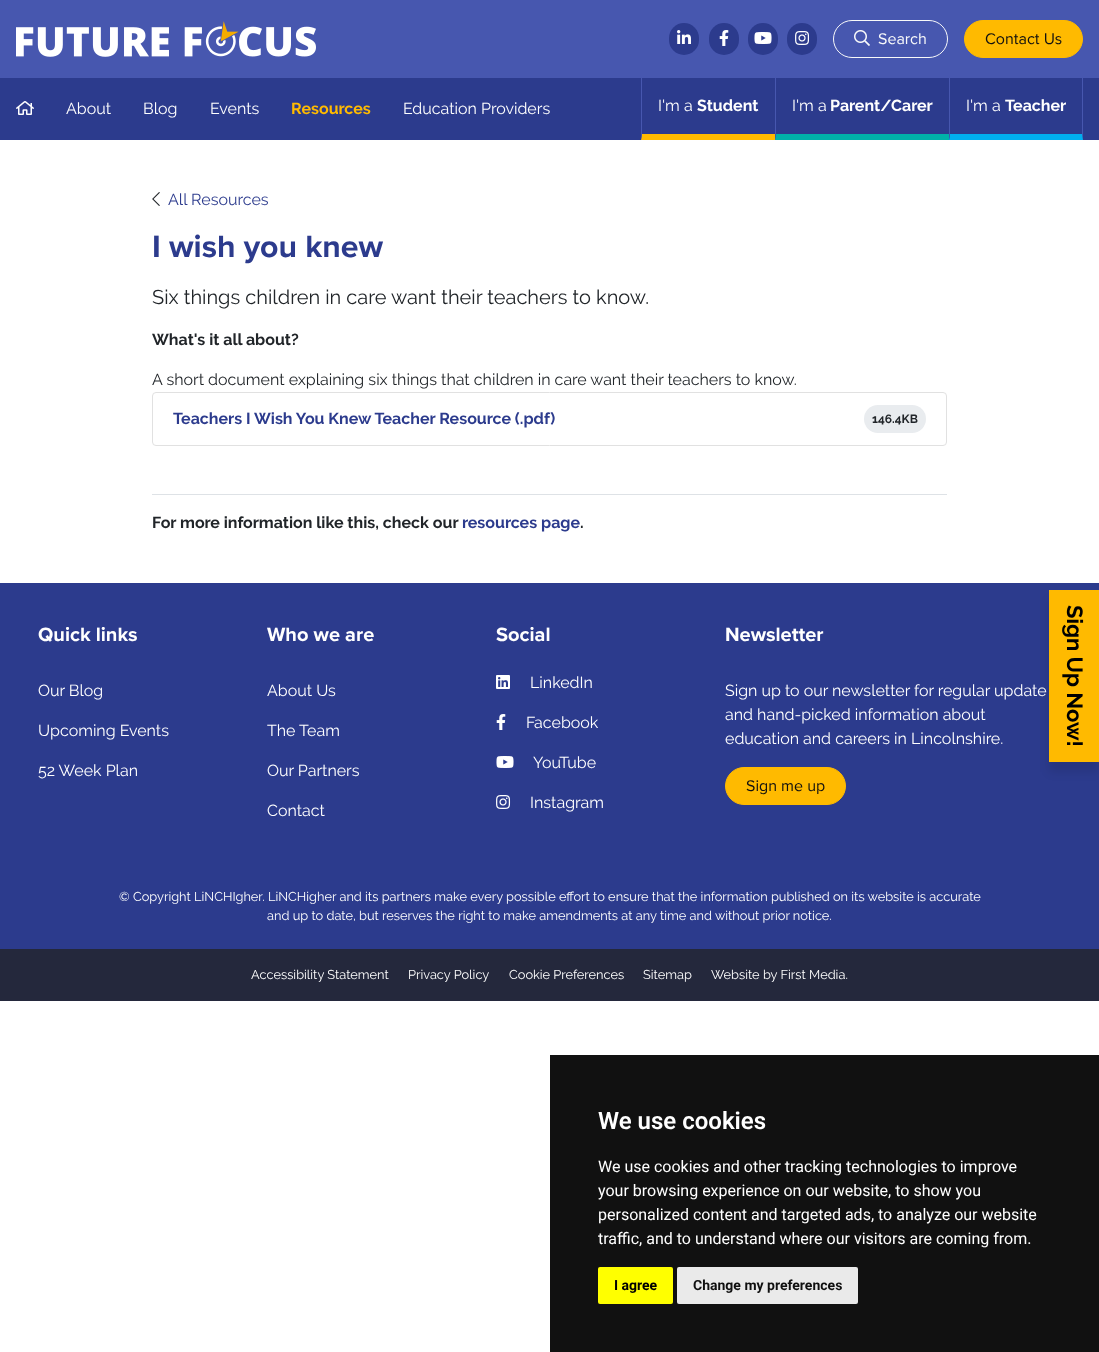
(async () => {
    const canvas = document.querySelector("canvas");
    canvas.width = 1099;
    canvas.height = 1352;
    const context = canvas.getContext("2d");
    context.miterLimit = 4;
    context.fontKerning = "normal";
    function write(s, x, y, font, color) {
        context.font = font;
        context.fillStyle = color;
        context.fillText(s, x, y);
    }
    function block(x, y, w, h, color) {
        context.fillStyle = color;
        context.fillRect(x, y, w, h);
    }
    function card(x, y, w, h, r, color) {
        context.fillStyle = color;
        context.beginPath();
        context.roundRect(x, y, w, h, r);
        context.fill();
    }
    async function photo(src, x, y, w, h) {
        const img = new Image();
        img.src = src;
        await img.decode();
        context.drawImage(img, x, y, w, h);
    }

    block(0, 0, 1099, 1352, "rgb(255, 255, 255)");
    block(0, 0, 1099, 78, "rgb(71, 87, 175)");
    await photo("media/1.png", 16, 21, 300, 36);
    card(669, 23, 30, 32, 15, "rgb(44, 59, 141)");
    await photo("media/2.png", 677, 30, 14, 14);
    card(709, 23, 30, 32, 15, "rgb(44, 59, 141)");
    await photo("media/3.png", 719, 30, 10, 16);
    card(748, 23, 30, 32, 15, "rgb(44, 59, 141)");
    await photo("media/4.png", 754, 32, 18, 12);
    card(787, 23, 30, 32, 15, "rgb(44, 59, 141)");
    await photo("media/5.png", 795, 31, 15, 14);
    context.beginPath();
    context.roundRect(833.5, 20.5, 114, 37, 18.5);
    context.strokeStyle = "rgb(248, 249, 250)";
    context.stroke();
    await photo("media/6.png", 854, 30, 16, 16);
    write("Search", 878, 44, "16px Proxima Nova", "rgb(248, 249, 250)");
    context.fillStyle = "rgb(255, 186, 0)";
    context.beginPath();
    context.roundRect(964.5, 20.5, 118, 37, 18.5);
    context.fill();
    context.strokeStyle = "rgb(255, 186, 0)";
    context.stroke();
    write("Contact Us", 985, 44, "16px Proxima Nova", "rgb(16, 16, 16)");
    block(0, 78, 1099, 62, "rgb(44, 59, 141)");
    await photo("media/7.png", 16, 101, 18, 14);
    write("About", 66, 114, "16px Raleway", "rgb(255, 255, 255)");
    write("Blog", 143, 114, "16px Raleway", "rgb(255, 255, 255)");
    write("Events", 210, 114, "16px Raleway", "rgb(255, 255, 255)");
    write("Resources", 291, 114, "bold 16px Raleway", "rgb(255, 186, 0)");
    write("Education Providers", 403, 114, "16px Raleway", "rgb(255, 255, 255)");
    context.fillStyle = "rgb(255, 186, 0)";
    context.beginPath();
    context.moveTo(775, 140);
    context.lineTo(641, 140);
    context.lineTo(642, 134);
    context.lineTo(775, 134);
    context.closePath();
    context.fill();
    context.fillStyle = "rgb(71, 87, 175)";
    context.beginPath();
    context.moveTo(641, 140);
    context.lineTo(641, 78);
    context.lineTo(642, 78);
    context.lineTo(642, 134);
    context.closePath();
    context.fill();
    write("I'm a", 658, 111, "16px Raleway", "rgb(255, 255, 255)");
    write("Student", 697, 111, "bold 16px Raleway", "rgb(255, 255, 255)");
    context.fillStyle = "rgb(0, 177, 169)";
    context.beginPath();
    context.moveTo(949, 140);
    context.lineTo(775, 140);
    context.lineTo(776, 134);
    context.lineTo(949, 134);
    context.closePath();
    context.fill();
    context.fillStyle = "rgb(71, 87, 175)";
    context.beginPath();
    context.moveTo(775, 140);
    context.lineTo(775, 78);
    context.lineTo(776, 78);
    context.lineTo(776, 134);
    context.closePath();
    context.fill();
    write("I'm a", 792, 111, "16px Raleway", "rgb(255, 255, 255)");
    write("Parent/Carer", 830, 111, "bold 16px Raleway", "rgb(255, 255, 255)");
    context.fillStyle = "rgb(71, 87, 175)";
    context.beginPath();
    context.moveTo(1083, 78);
    context.lineTo(1083, 140);
    context.lineTo(1082, 134);
    context.lineTo(1082, 78);
    context.closePath();
    context.fill();
    context.fillStyle = "rgb(0, 174, 239)";
    context.beginPath();
    context.moveTo(1083, 140);
    context.lineTo(949, 140);
    context.lineTo(950, 134);
    context.lineTo(1082, 134);
    context.closePath();
    context.fill();
    context.fillStyle = "rgb(71, 87, 175)";
    context.beginPath();
    context.moveTo(949, 140);
    context.lineTo(949, 78);
    context.lineTo(950, 78);
    context.lineTo(950, 134);
    context.closePath();
    context.fill();
    write("I'm a", 966, 111, "16px Raleway", "rgb(255, 255, 255)");
    write("Teacher", 1005, 111, "bold 16px Raleway", "rgb(255, 255, 255)");
    await photo("media/8.png", 152, 192, 8, 14);
    write("All Resources", 168, 205, "16px Raleway", "rgb(44, 59, 141)");
    write("I wish you knew", 152, 257, "bold 32px Proxima Nova", "rgb(44, 59, 141)");
    write("Six things children in care want their teachers to know.", 152, 304, "20px Raleway", "rgb(33, 37, 41)");
    write("What's it all about?", 152, 345, "bold 16px Raleway", "rgb(33, 37, 41)");
    write("A short document explaining six things that children in care want their teachers to know.", 152, 385, "16px Raleway", "rgb(33, 37, 41)");
    context.beginPath();
    context.roundRect(152.5, 392.5, 794, 53, 3.5);
    context.strokeStyle = "rgb(225, 225, 225)";
    context.stroke();
    write("Teachers I Wish You Knew Teacher Resource (.pdf)", 173, 424, "bold 16px Raleway", "rgb(44, 59, 141)");
    card(864, 405, 62, 28, 14, "rgb(233, 236, 239)");
    write("146.4KB", 872, 423, "bold 12px Raleway", "rgb(33, 37, 41)");
    block(152, 494, 795, 1, "rgb(222, 226, 230)");
    write("For more information like this, check our", 152, 528, "bold 16px Raleway", "rgb(33, 37, 41)");
    write("resources page", 462, 528, "bold 16px Raleway", "rgb(44, 59, 141)");
    write(".", 580, 528, "bold 16px Raleway", "rgb(33, 37, 41)");
    block(0, 583, 1099, 366, "rgb(44, 59, 141)");
    write("Quick links", 38, 641, "bold 20px Proxima Nova", "rgb(255, 255, 255)");
    write("Our Blog", 38, 696, "16px Raleway", "rgb(255, 255, 255)");
    write("Upcoming Events", 38, 736, "16px Raleway", "rgb(255, 255, 255)");
    write("52 Week Plan", 38, 776, "16px Raleway", "rgb(255, 255, 255)");
    write("Who we are", 267, 641, "bold 20px Proxima Nova", "rgb(255, 255, 255)");
    write("About Us", 267, 696, "16px Raleway", "rgb(255, 255, 255)");
    write("The Team", 267, 736, "16px Raleway", "rgb(255, 255, 255)");
    write("Our Partners", 267, 776, "16px Raleway", "rgb(255, 255, 255)");
    write("Contact", 267, 816, "16px Raleway", "rgb(255, 255, 255)");
    write("Social", 496, 641, "bold 20px Proxima Nova", "rgb(255, 255, 255)");
    await photo("media/9.png", 496, 675, 14, 14);
    write("LinkedIn", 530, 688, "16px Raleway", "rgb(255, 255, 255)");
    await photo("media/3.png", 496, 714, 10, 16);
    write("Facebook", 526, 728, "16px Raleway", "rgb(255, 255, 255)");
    await photo("media/4.png", 496, 756, 18, 12);
    write("YouTube", 533, 768, "16px Raleway", "rgb(255, 255, 255)");
    await photo("media/5.png", 496, 795, 15, 14);
    write("Instagram", 530, 808, "16px Raleway", "rgb(255, 255, 255)");
    write("Newsletter", 725, 641, "bold 20px Proxima Nova", "rgb(255, 255, 255)");
    write("Sign up to our newsletter for regular update", 725, 696, "16px Raleway", "rgb(255, 255, 255)");
    write("and hand-picked information about", 725, 720, "16px Raleway", "rgb(255, 255, 255)");
    write("education and careers in Lincolnshire.", 725, 744, "16px Raleway", "rgb(255, 255, 255)");
    context.fillStyle = "rgb(255, 186, 0)";
    context.beginPath();
    context.roundRect(725.5, 767.5, 120, 37, 18.5);
    context.fill();
    context.strokeStyle = "rgb(255, 186, 0)";
    context.stroke();
    write("Sign me up", 746, 791, "16px Proxima Nova", "rgb(16, 16, 16)");
    write("© Copyright LiNCHIgher. LiNCHigher and its partners make every possible effort to ensure that the information published on its website is accurate", 119, 901, "12.8px Raleway", "rgb(255, 255, 255)");
    write("and up to date, but reserves the right to make amendments at any time and without prior notice.", 267, 920, "12.8px Raleway", "rgb(255, 255, 255)");
    block(0, 949, 1099, 52, "rgb(36, 40, 60)");
    write("Accessibility Statement", 251, 979, "12.8px Raleway", "rgb(255, 255, 255)");
    write("Privacy Policy", 408, 979, "12.8px Raleway", "rgb(255, 255, 255)");
    write("Cookie Preferences", 509, 979, "12.8px Raleway", "rgb(255, 255, 255)");
    write("Sitemap", 643, 979, "12.8px Raleway", "rgb(255, 255, 255)");
    write("Website by First Media.", 711, 979, "12.8px Raleway", "rgb(255, 255, 255)");
    context.fillStyle = "rgba(0, 0, 0, 0.1)";
    context.filter = "blur(5px)";
    context.beginPath();
    context.rect(1049, 600, 50, 172);
    context.fill();
    context.filter = "none";
    block(1049, 590, 50, 172, "rgb(255, 186, 0)");
    context.font = "bold 22px Raleway";
    context.fillStyle = "rgb(0, 0, 0)";
    context.save();
    context.translate(1067, 605);
    context.rotate(90 * Math.PI / 180);
    context.fillText("Sign Up Now!", 0, 0);
    context.restore();
    block(550, 1055, 549, 297, "rgb(17, 17, 17)");
    write("We use cookies", 598, 1129, "600 24px Roboto", "rgb(255, 255, 255)");
    write("We use cookies and other tracking technologies to improve", 598, 1172, "16px Roboto", "rgb(255, 255, 255)");
    write("your browsing experience on our website, to show you", 598, 1196, "16px Roboto", "rgb(255, 255, 255)");
    write("personalized content and targeted ads, to analyze our website", 598, 1220, "16px Roboto", "rgb(255, 255, 255)");
    write("traffic, and to understand where our visitors are coming from.", 598, 1244, "16px Roboto", "rgb(255, 255, 255)");
    card(598, 1267, 75, 37, 2, "rgb(255, 255, 0)");
    write("I agree", 614, 1290, "bold 14px Roboto", "rgb(0, 0, 0)");
    card(677, 1267, 181, 37, 2, "rgb(234, 234, 234)");
    write("Change my preferences", 693, 1290, "bold 14px Roboto", "rgb(16, 16, 16)");
})();
